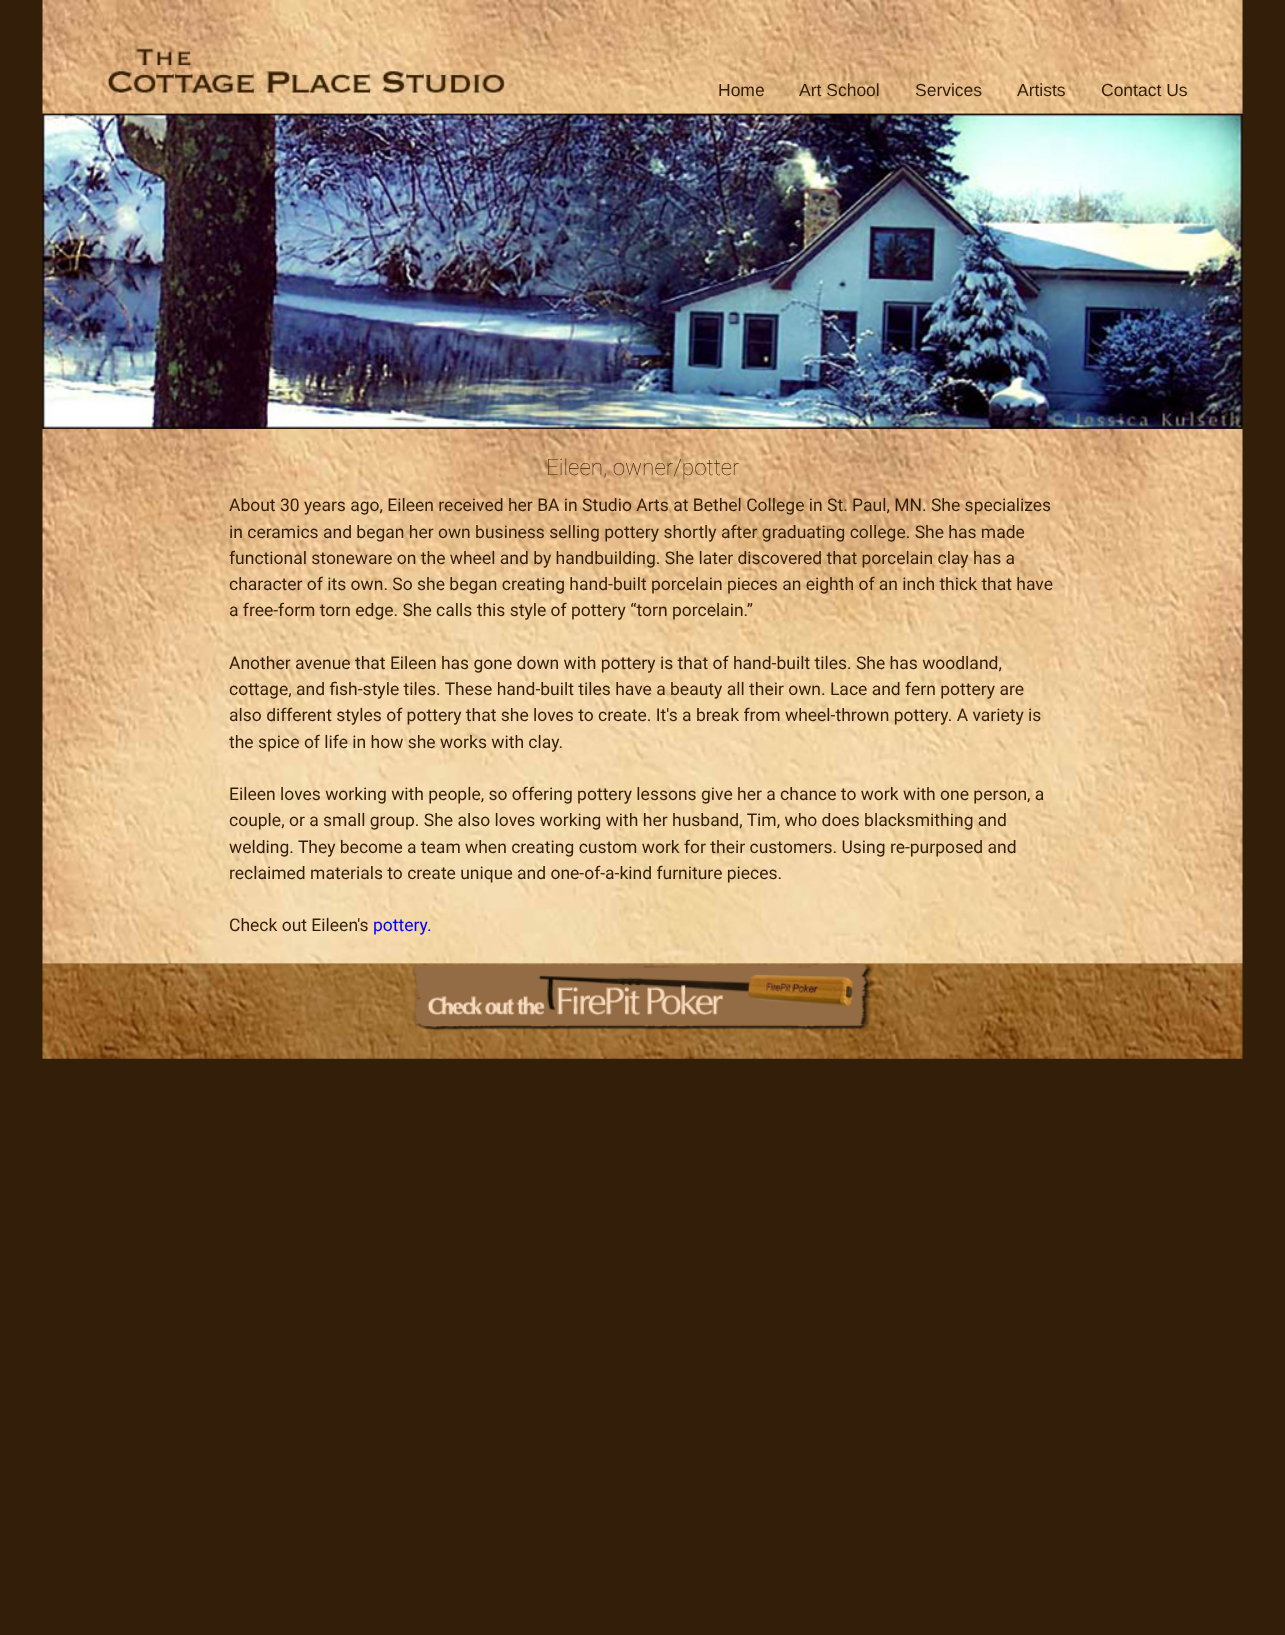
(async () => {
    const canvas = document.querySelector("canvas");
    canvas.width = 1285;
    canvas.height = 1635;
    const context = canvas.getContext("2d");
    context.miterLimit = 4;
    context.fontKerning = "normal";
    function write(s, x, y, font, color) {
        context.font = font;
        context.fillStyle = color;
        context.fillText(s, x, y);
    }
    function block(x, y, w, h, color) {
        context.fillStyle = color;
        context.fillRect(x, y, w, h);
    }
    async function photo(src, x, y, w, h) {
        const img = new Image();
        img.src = src;
        await img.decode();
        context.drawImage(img, x, y, w, h);
    }

    block(0, 0, 1285, 1635, "rgb(50, 30, 9)");
    await photo("media/1.png", 42, 0, 1201, 114);
    write("Home", 718, 96, "17.5px Liberation Sans", "rgb(50, 30, 9)");
    write("Art School", 799, 96, "17.5px Liberation Sans", "rgb(50, 30, 9)");
    write("Services", 915, 96, "17.5px Liberation Sans", "rgb(50, 30, 9)");
    write("Artists", 1017, 96, "17.5px Liberation Sans", "rgb(50, 30, 9)");
    write("Contact Us", 1101, 96, "17.5px Liberation Sans", "rgb(50, 30, 9)");
    await photo("media/3.png", 42, 428, 1201, 536);
    await photo("media/2.png", 42, 113, 1201, 316);
    write("Eileen, owner/potter", 546, 475, "100 22.5px Roboto", "rgb(50, 30, 9)");
    write("About 30 years ago, Eileen received her BA in Studio Arts at Bethel College in St. Paul, MN. She specializes", 229, 511, "17.5px Roboto", "rgb(50, 30, 9)");
    write("in ceramics and began her own business selling pottery shortly after graduating college. She has made", 229, 538, "17.5px Roboto", "rgb(50, 30, 9)");
    write("functional stoneware on the wheel and by handbuilding. She later discovered that porcelain clay has a", 229, 564, "17.5px Roboto", "rgb(50, 30, 9)");
    write("character of its own. So she began creating hand-built porcelain pieces an eighth of an inch thick that have", 229, 590, "17.5px Roboto", "rgb(50, 30, 9)");
    write("a free-form torn edge. She calls this style of pottery “torn porcelain.”", 229, 616, "17.5px Roboto", "rgb(50, 30, 9)");
    write("Another avenue that Eileen has gone down with pottery is that of hand-built tiles. She has woodland,", 229, 669, "17.5px Roboto", "rgb(50, 30, 9)");
    write("cottage, and fish-style tiles. These hand-built tiles have a beauty all their own. Lace and fern pottery are", 229, 695, "17.5px Roboto", "rgb(50, 30, 9)");
    write("also different styles of pottery that she loves to create. It's a break from wheel-thrown pottery. A variety is", 229, 721, "17.5px Roboto", "rgb(50, 30, 9)");
    write("the spice of life in how she works with clay.", 229, 748, "17.5px Roboto", "rgb(50, 30, 9)");
    write("Eileen loves working with people, so offering pottery lessons give her a chance to work with one person, a", 229, 800, "17.5px Roboto", "rgb(50, 30, 9)");
    write("couple, or a small group. She also loves working with her husband, Tim, who does blacksmithing and", 229, 826, "17.5px Roboto", "rgb(50, 30, 9)");
    write("welding. They become a team when creating custom work for their customers. Using re-purposed and", 229, 853, "17.5px Roboto", "rgb(50, 30, 9)");
    write("reclaimed materials to create unique and one-of-a-kind furniture pieces.", 229, 879, "17.5px Roboto", "rgb(50, 30, 9)");
    write("Check out Eileen's", 229, 931, "17.5px Roboto", "rgb(50, 30, 9)");
    write("pottery.", 373, 931, "17.5px Roboto", "rgb(0, 0, 238)");
    await photo("media/4.png", 42, 963, 1201, 96);
    await photo("media/5.png", 412, 963, 462, 68);
})();
